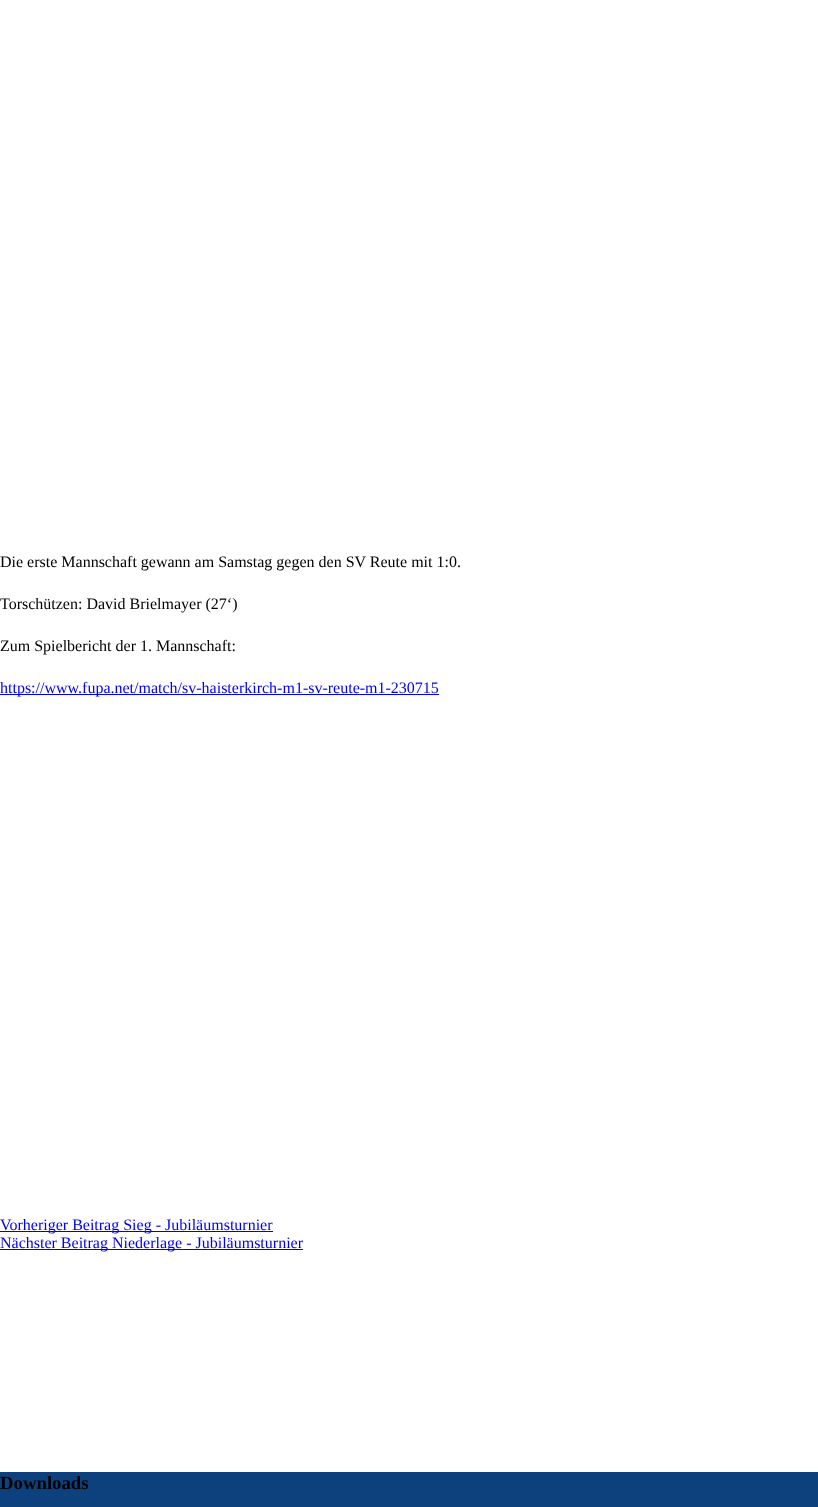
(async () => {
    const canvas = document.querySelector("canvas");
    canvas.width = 818;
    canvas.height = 1507;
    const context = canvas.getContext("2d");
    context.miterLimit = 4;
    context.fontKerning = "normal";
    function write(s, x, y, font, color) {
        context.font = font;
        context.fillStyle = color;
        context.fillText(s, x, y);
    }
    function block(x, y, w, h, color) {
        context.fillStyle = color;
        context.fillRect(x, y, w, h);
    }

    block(0, 0, 818, 1507, "rgb(255, 255, 255)");
    write("Die erste Mannschaft gewann am Samstag gegen den SV Reute mit 1:0.", 0, 567, "16px Liberation Serif", "rgb(0, 0, 0)");
    write("Torschützen: David Brielmayer (27‘)", 0, 609, "16px Liberation Serif", "rgb(0, 0, 0)");
    write("Zum Spielbericht der 1. Mannschaft:", 0, 651, "16px Liberation Serif", "rgb(0, 0, 0)");
    block(0, 694, 439, 1, "rgb(0, 0, 238)");
    write("https://www.fupa.net/match/sv-haisterkirch-m1-sv-reute-m1-230715", 0, 693, "16px Liberation Serif", "rgb(0, 0, 238)");
    block(0, 1231, 273, 1, "rgb(0, 0, 238)");
    write("Vorheriger Beitrag Sieg - Jubiläumsturnier", 0, 1230, "16px Liberation Serif", "rgb(0, 0, 238)");
    block(0, 1249, 303, 1, "rgb(0, 0, 238)");
    write("Nächster Beitrag Niederlage - Jubiläumsturnier", 0, 1248, "16px Liberation Serif", "rgb(0, 0, 238)");
    block(0, 1472, 818, 35, "rgb(12, 65, 126)");
    write("Downloads", 0, 1489, "bold 18.75px Liberation Serif", "rgb(0, 0, 0)");
})();
